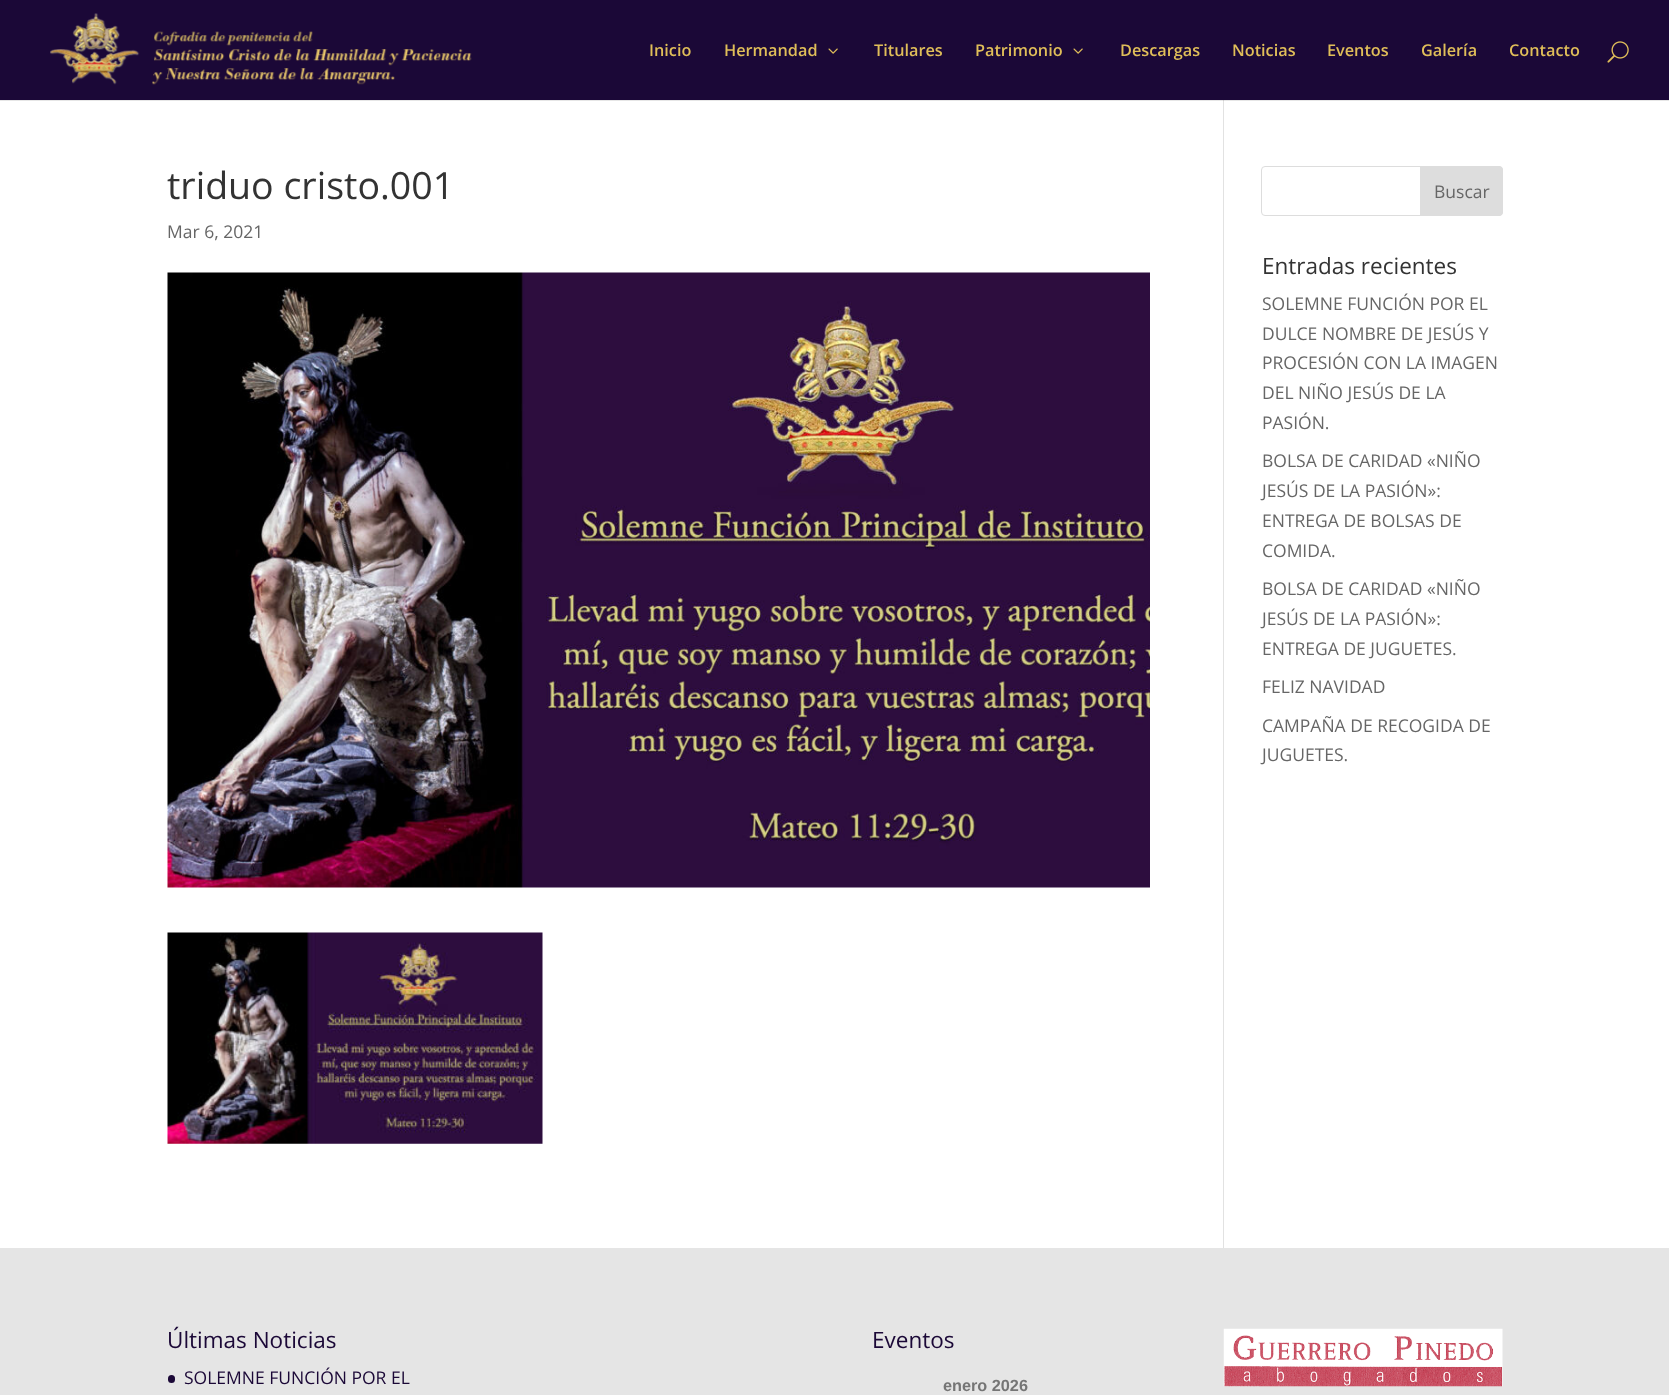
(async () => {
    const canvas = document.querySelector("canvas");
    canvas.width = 1669;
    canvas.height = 1395;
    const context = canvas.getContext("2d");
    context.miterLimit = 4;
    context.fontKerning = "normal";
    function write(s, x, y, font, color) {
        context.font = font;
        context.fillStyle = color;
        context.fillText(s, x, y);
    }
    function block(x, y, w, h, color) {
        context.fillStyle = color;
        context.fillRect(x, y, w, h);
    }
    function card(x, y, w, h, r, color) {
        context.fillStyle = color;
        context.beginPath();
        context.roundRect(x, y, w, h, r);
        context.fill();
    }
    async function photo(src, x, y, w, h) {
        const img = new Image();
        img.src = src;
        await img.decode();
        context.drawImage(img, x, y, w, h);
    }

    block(0, 0, 1669, 1395, "rgb(255, 255, 255)");
    block(0, 100, 1669, 1, "rgb(230, 230, 230)");
    block(1223, 94, 1, 1154, "rgb(226, 226, 226)");
    block(0, 0, 1669, 100, "rgb(27, 8, 55)");
    await photo("media/1.png", 50, 13, 422, 72);
    write("Inicio", 649, 56, "600 16.25px Open Sans", "rgb(224, 190, 89)");
    write("Hermandad", 724, 56, "600 16.25px Open Sans", "rgb(224, 190, 89)");
    await photo("media/2.png", 828, 48, 10, 6);
    write("Titulares", 874, 56, "600 16.25px Open Sans", "rgb(224, 190, 89)");
    write("Patrimonio", 975, 56, "600 16.25px Open Sans", "rgb(224, 190, 89)");
    await photo("media/2.png", 1073, 48, 10, 6);
    write("Descargas", 1120, 56, "600 16.25px Open Sans", "rgb(224, 190, 89)");
    write("Noticias", 1232, 56, "600 16.25px Open Sans", "rgb(224, 190, 89)");
    write("Eventos", 1327, 56, "600 16.25px Open Sans", "rgb(224, 190, 89)");
    write("Galería", 1421, 56, "600 16.25px Open Sans", "rgb(224, 190, 89)");
    write("Contacto", 1509, 56, "600 16.25px Open Sans", "rgb(224, 190, 89)");
    await photo("media/3.png", 1607, 41, 22, 22);
    block(1223, 100, 1, 1, "rgb(203, 203, 203)");
    write("triduo cristo.001", 167, 199, "37.5px Open Sans", "rgb(51, 51, 51)");
    write("Mar 6, 2021", 167, 238, "17.5px Open Sans", "rgb(102, 102, 102)");
    await photo("media/4.png", 167, 272, 983, 616);
    await photo("media/5.png", 167, 932, 376, 212);
    context.beginPath();
    context.roundRect(1261.5, 166.5, 241, 49, 3.5);
    context.strokeStyle = "rgb(221, 221, 221)";
    context.stroke();
    context.fillStyle = "rgb(221, 221, 221)";
    context.beginPath();
    context.roundRect(1420.5, 166.5, 82, 49, [0, 3.5, 3.5, 0]);
    context.fill();
    context.stroke();
    write("Buscar", 1434, 198, "17.5px Open Sans", "rgb(102, 102, 102)");
    write("Entradas recientes", 1262, 274, "22.5px Open Sans", "rgb(51, 51, 51)");
    write("SOLEMNE FUNCIÓN POR EL", 1262, 310, "17.5px Open Sans", "rgb(102, 102, 102)");
    write("DULCE NOMBRE DE JESÚS Y", 1262, 340, "17.5px Open Sans", "rgb(102, 102, 102)");
    write("PROCESIÓN CON LA IMAGEN", 1262, 369, "17.5px Open Sans", "rgb(102, 102, 102)");
    write("DEL NIÑO JESÚS DE LA", 1262, 399, "17.5px Open Sans", "rgb(102, 102, 102)");
    write("PASIÓN.", 1262, 429, "17.5px Open Sans", "rgb(102, 102, 102)");
    write("BOLSA DE CARIDAD «NIÑO", 1262, 467, "17.5px Open Sans", "rgb(102, 102, 102)");
    write("JESÚS DE LA PASIÓN»:", 1262, 497, "17.5px Open Sans", "rgb(102, 102, 102)");
    write("ENTREGA DE BOLSAS DE", 1262, 527, "17.5px Open Sans", "rgb(102, 102, 102)");
    write("COMIDA.", 1262, 557, "17.5px Open Sans", "rgb(102, 102, 102)");
    write("BOLSA DE CARIDAD «NIÑO", 1262, 595, "17.5px Open Sans", "rgb(102, 102, 102)");
    write("JESÚS DE LA PASIÓN»:", 1262, 625, "17.5px Open Sans", "rgb(102, 102, 102)");
    write("ENTREGA DE JUGUETES.", 1262, 655, "17.5px Open Sans", "rgb(102, 102, 102)");
    write("FELIZ NAVIDAD", 1262, 693, "17.5px Open Sans", "rgb(102, 102, 102)");
    write("CAMPAÑA DE RECOGIDA DE", 1262, 732, "17.5px Open Sans", "rgb(102, 102, 102)");
    write("JUGUETES.", 1262, 761, "17.5px Open Sans", "rgb(102, 102, 102)");
    block(0, 1248, 1669, 147, "rgb(229, 229, 229)");
    write("Últimas Noticias", 167, 1348, "22.5px Open Sans", "rgb(27, 8, 55)");
    card(168, 1375, 7, 8, 3.5, "rgb(27, 8, 55)");
    write("SOLEMNE FUNCIÓN POR EL", 184, 1384, "17.5px Open Sans", "rgb(27, 8, 55)");
    write("Eventos", 872, 1348, "22.5px Open Sans", "rgb(27, 8, 55)");
    write("enero 2026", 943, 1391, "bold 16.25px Liberation Sans", "rgb(117, 117, 117)");
    await photo("media/6.png", 1223, 1328, 280, 59);
})();
